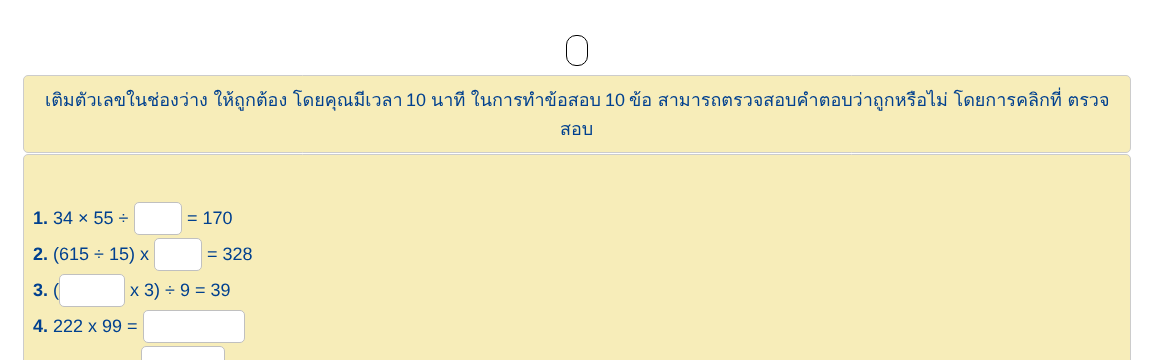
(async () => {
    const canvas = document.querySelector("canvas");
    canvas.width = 1154;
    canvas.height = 360;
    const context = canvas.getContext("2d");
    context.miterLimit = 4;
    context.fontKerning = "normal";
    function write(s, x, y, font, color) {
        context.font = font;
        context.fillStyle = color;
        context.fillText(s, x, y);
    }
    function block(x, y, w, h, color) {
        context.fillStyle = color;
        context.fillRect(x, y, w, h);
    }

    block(0, 0, 1154, 360, "rgb(255, 255, 255)");
    context.beginPath();
    context.roundRect(566.5, 35.5, 21, 30, 9.5);
    context.strokeStyle = "rgb(0, 0, 0)";
    context.stroke();
    context.fillStyle = "rgb(247, 237, 185)";
    context.beginPath();
    context.roundRect(23.5, 75.5, 1107, 77, 4.5);
    context.fill();
    context.strokeStyle = "rgb(204, 204, 204)";
    context.stroke();
    context.wordSpacing = "-0.5px";
    write("เติมตัวเลขในช่องว่าง ให้ถูกต้อง โดยคุณมีเวลา", 45, 106, "18px Loma", "rgb(0, 64, 143)");
    context.wordSpacing = "0px";
    write("10", 406, 106, "18px Liberation Sans", "rgb(0, 64, 143)");
    context.wordSpacing = "-0.5px";
    write("นาที ในการทำข้อสอบ", 431, 106, "18px Loma", "rgb(0, 64, 143)");
    context.wordSpacing = "0px";
    write("10", 605, 106, "18px Liberation Sans", "rgb(0, 64, 143)");
    context.wordSpacing = "-0.5px";
    write("ข้อ สามารถตรวจสอบคำตอบว่าถูกหรือไม่ โดยการคลิกที่ ตรวจ", 629, 106, "18px Loma", "rgb(0, 64, 143)");
    context.wordSpacing = "0px";
    write("สอบ", 560, 135, "18px Loma", "rgb(0, 64, 143)");
    context.fillStyle = "rgb(247, 237, 185)";
    context.beginPath();
    context.roundRect(23.5, 154.5, 1107, 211, 4.5);
    context.fill();
    context.stroke();
    write("1.", 33, 224, "bold 18px Liberation Sans", "rgb(0, 64, 143)");
    write("34 × 55 ÷", 53, 224, "18px Liberation Sans", "rgb(0, 64, 143)");
    context.fillStyle = "rgb(255, 255, 255)";
    context.beginPath();
    context.roundRect(134.5, 202.5, 47, 32, 4.5);
    context.fill();
    context.strokeStyle = "rgb(192, 192, 192)";
    context.stroke();
    write("= 170", 187, 224, "18px Liberation Sans", "rgb(0, 64, 143)");
    write("2.", 33, 260, "bold 18px Liberation Sans", "rgb(0, 64, 143)");
    write("(615 ÷ 15) x", 53, 260, "18px Liberation Sans", "rgb(0, 64, 143)");
    context.fillStyle = "rgb(255, 255, 255)";
    context.beginPath();
    context.roundRect(154.5, 238.5, 47, 32, 4.5);
    context.fill();
    context.stroke();
    write("= 328", 207, 260, "18px Liberation Sans", "rgb(0, 64, 143)");
    write("3.", 33, 296, "bold 18px Liberation Sans", "rgb(0, 64, 143)");
    write("(", 53, 296, "18px Liberation Sans", "rgb(0, 64, 143)");
    context.fillStyle = "rgb(255, 255, 255)";
    context.beginPath();
    context.roundRect(59.5, 274.5, 65, 32, 4.5);
    context.fill();
    context.stroke();
    write("x 3) ÷ 9 = 39", 130, 296, "18px Liberation Sans", "rgb(0, 64, 143)");
    write("4.", 33, 332, "bold 18px Liberation Sans", "rgb(0, 64, 143)");
    write("222 x 99 =", 53, 332, "18px Liberation Sans", "rgb(0, 64, 143)");
    context.fillStyle = "rgb(255, 255, 255)";
    context.beginPath();
    context.roundRect(143.5, 310.5, 101, 32, 4.5);
    context.fill();
    context.stroke();
    context.beginPath();
    context.roundRect(141.5, 346.5, 83, 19, 4.5);
    context.fill();
    context.stroke();
})();
